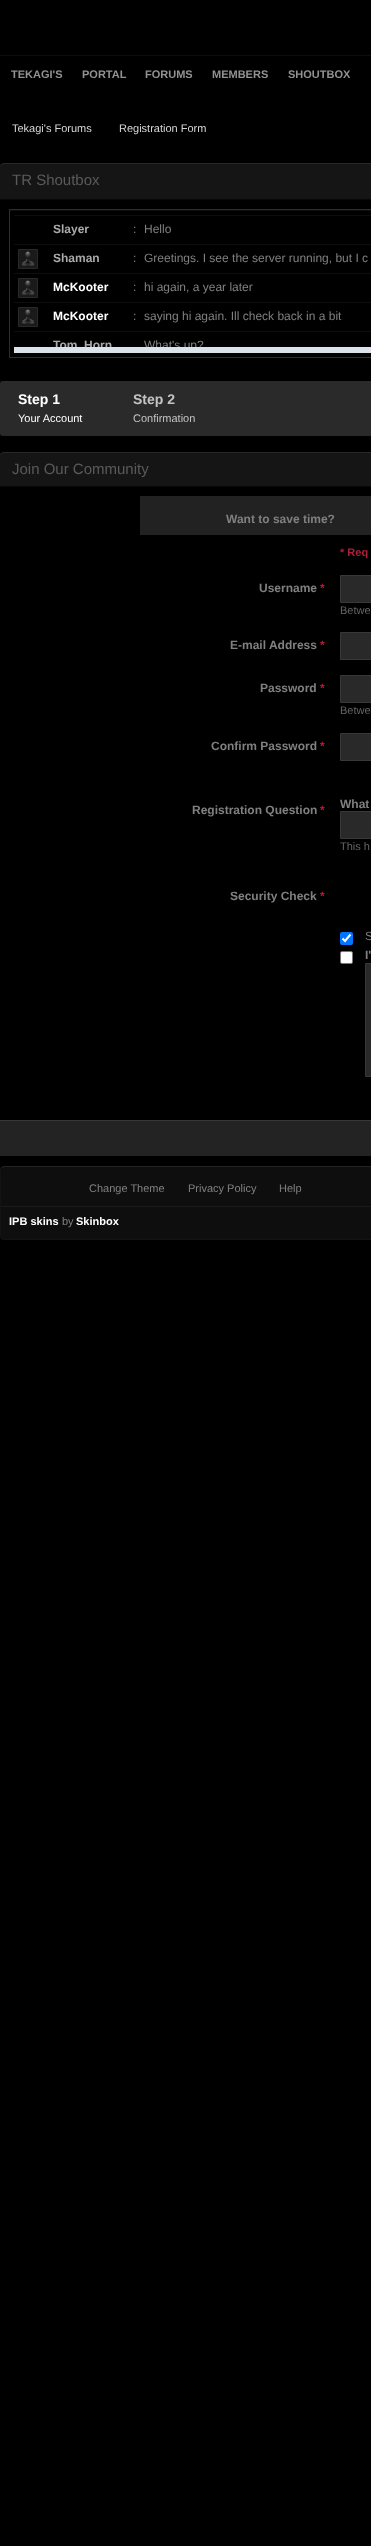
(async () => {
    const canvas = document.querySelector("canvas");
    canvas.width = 371;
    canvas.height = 2546;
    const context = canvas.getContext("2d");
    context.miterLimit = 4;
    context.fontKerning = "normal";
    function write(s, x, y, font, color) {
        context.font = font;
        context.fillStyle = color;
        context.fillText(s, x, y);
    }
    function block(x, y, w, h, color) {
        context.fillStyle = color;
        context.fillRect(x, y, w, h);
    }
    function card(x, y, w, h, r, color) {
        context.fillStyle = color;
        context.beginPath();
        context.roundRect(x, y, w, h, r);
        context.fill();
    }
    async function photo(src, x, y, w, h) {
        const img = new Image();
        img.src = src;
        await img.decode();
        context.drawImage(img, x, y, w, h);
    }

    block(0, 0, 371, 2546, "rgb(0, 0, 0)");
    block(0, 55, 371, 1, "rgb(13, 13, 13)");
    write("TEKAGI'S", 11, 78, "bold 11px Liberation Sans", "rgb(146, 146, 146)");
    write("PORTAL", 82, 78, "bold 11px Liberation Sans", "rgb(146, 146, 146)");
    write("FORUMS", 145, 78, "bold 11px Liberation Sans", "rgb(146, 146, 146)");
    write("MEMBERS", 212, 78, "bold 11px Liberation Sans", "rgb(146, 146, 146)");
    write("SHOUTBOX", 288, 78, "bold 11px Liberation Sans", "rgb(146, 146, 146)");
    write("Tekagi's Forums", 12, 132, "11px Liberation Sans", "rgb(215, 215, 215)");
    write("Registration Form", 119, 132, "11px Liberation Sans", "rgb(215, 215, 215)");
    context.fillStyle = "rgb(21, 21, 21)";
    context.beginPath();
    context.moveTo(4, 162);
    context.lineTo(371, 162);
    context.bezierCurveTo(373, 162, 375, 164, 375, 166);
    context.lineTo(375, 200);
    context.lineTo(0, 200);
    context.lineTo(0, 166);
    context.bezierCurveTo(0, 164, 2, 162, 4, 162);
    context.closePath();
    context.fill();
    context.fillStyle = "rgb(40, 40, 40)";
    context.beginPath();
    context.moveTo(4, 164);
    context.lineTo(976, 164);
    context.bezierCurveTo(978, 164, 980, 165, 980, 167);
    context.lineTo(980, 166);
    context.bezierCurveTo(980, 164, 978, 163, 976, 163);
    context.lineTo(4, 163);
    context.bezierCurveTo(2, 163, 0, 164, 0, 166);
    context.lineTo(0, 167);
    context.bezierCurveTo(0, 165, 2, 164, 4, 164);
    context.closePath();
    context.fill();
    context.fillStyle = "rgb(0, 0, 0)";
    context.beginPath();
    context.moveTo(4, 162);
    context.bezierCurveTo(2, 162, 0, 164, 0, 166);
    context.bezierCurveTo(0, 164, 2, 163, 4, 163);
    context.lineTo(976, 163);
    context.bezierCurveTo(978, 163, 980, 164, 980, 166);
    context.bezierCurveTo(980, 164, 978, 162, 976, 162);
    context.closePath();
    context.fill();
    block(0, 199, 371, 1, "rgb(8, 8, 8)");
    write("TR Shoutbox", 12, 185, "15px Liberation Sans", "rgb(90, 90, 90)");
    context.strokeStyle = "rgb(45, 45, 45)";
    context.strokeRect(9.5, 209.5, 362, 148);
    block(10, 210, 361, 1, "rgb(13, 13, 13)");
    block(14, 215, 357, 1, "rgb(13, 13, 13)");
    write("Slayer", 53, 233, "bold 12px Liberation Sans", "rgb(170, 170, 170)");
    write(":", 133, 233, "12px Liberation Sans", "rgb(128, 128, 128)");
    write("Hello", 144, 233, "12px Liberation Sans", "rgb(128, 128, 128)");
    block(14, 244, 357, 1, "rgb(13, 13, 13)");
    context.fillStyle = "rgb(26, 26, 26)";
    context.beginPath();
    context.rect(18.5, 249.5, 19, 19);
    context.fill();
    context.strokeStyle = "rgb(41, 41, 41)";
    context.stroke();
    await photo("media/1.png", 21, 251, 14, 15);
    write("Shaman", 53, 262, "bold 12px Liberation Sans", "rgb(170, 170, 170)");
    write(":", 133, 262, "12px Liberation Sans", "rgb(128, 128, 128)");
    write("Greetings. I see the server running, but I c", 144, 262, "12px Liberation Sans", "rgb(128, 128, 128)");
    block(14, 273, 357, 1, "rgb(13, 13, 13)");
    context.fillStyle = "rgb(26, 26, 26)";
    context.beginPath();
    context.rect(18.5, 278.5, 19, 19);
    context.fill();
    context.stroke();
    await photo("media/1.png", 21, 280, 14, 15);
    write("McKooter", 53, 291, "bold 12px Liberation Sans", "rgb(255, 255, 255)");
    write(":", 133, 291, "12px Liberation Sans", "rgb(128, 128, 128)");
    write("hi again, a year later", 144, 291, "12px Liberation Sans", "rgb(128, 128, 128)");
    block(14, 302, 357, 1, "rgb(13, 13, 13)");
    context.fillStyle = "rgb(26, 26, 26)";
    context.beginPath();
    context.rect(18.5, 307.5, 19, 19);
    context.fill();
    context.stroke();
    await photo("media/1.png", 21, 309, 14, 15);
    write("McKooter", 53, 320, "bold 12px Liberation Sans", "rgb(255, 255, 255)");
    write(":", 133, 320, "12px Liberation Sans", "rgb(128, 128, 128)");
    write("saying hi again. Ill check back in a bit", 144, 320, "12px Liberation Sans", "rgb(128, 128, 128)");
    block(14, 331, 357, 1, "rgb(13, 13, 13)");
    context.save();
    context.beginPath();
    context.rect(14, 215, 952, 132);
    context.clip();
    write("Tom_Horn", 53, 349, "bold 12px Liberation Sans", "rgb(170, 170, 170)");
    write("What's up?", 144, 349, "12px Liberation Sans", "rgb(128, 128, 128)");
    context.restore();
    block(14, 347, 357, 6, "rgb(219, 226, 236)");
    card(0, 381, 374, 55, 3, "rgb(42, 42, 42)");
    write("Step 1", 18, 404, "bold 14px Liberation Sans", "rgb(255, 255, 255)");
    write("Your Account", 18, 422, "11px Liberation Sans", "rgb(255, 255, 255)");
    write("Step 2", 133, 404, "bold 14px Liberation Sans", "rgb(195, 195, 195)");
    write("Confirmation", 133, 422, "11px Liberation Sans", "rgb(195, 195, 195)");
    context.fillStyle = "rgb(21, 21, 21)";
    context.beginPath();
    context.moveTo(4, 451);
    context.lineTo(371, 451);
    context.bezierCurveTo(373, 451, 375, 453, 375, 455);
    context.lineTo(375, 487);
    context.lineTo(0, 487);
    context.lineTo(0, 455);
    context.bezierCurveTo(0, 453, 2, 451, 4, 451);
    context.closePath();
    context.fill();
    context.fillStyle = "rgb(40, 40, 40)";
    context.beginPath();
    context.moveTo(4, 453);
    context.lineTo(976, 453);
    context.bezierCurveTo(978, 453, 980, 454, 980, 456);
    context.lineTo(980, 455);
    context.bezierCurveTo(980, 453, 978, 452, 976, 452);
    context.lineTo(4, 452);
    context.bezierCurveTo(2, 452, 0, 453, 0, 455);
    context.lineTo(0, 456);
    context.bezierCurveTo(0, 454, 2, 453, 4, 453);
    context.closePath();
    context.fill();
    context.fillStyle = "rgb(0, 0, 0)";
    context.beginPath();
    context.moveTo(4, 451);
    context.bezierCurveTo(2, 451, 0, 453, 0, 455);
    context.bezierCurveTo(0, 453, 2, 452, 4, 452);
    context.lineTo(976, 452);
    context.bezierCurveTo(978, 452, 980, 453, 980, 455);
    context.bezierCurveTo(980, 453, 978, 451, 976, 451);
    context.closePath();
    context.fill();
    block(0, 486, 371, 1, "rgb(8, 8, 8)");
    write("Join Our Community", 12, 474, "15px Liberation Sans", "rgb(90, 90, 90)");
    block(140, 496, 231, 39, "rgb(34, 34, 34)");
    write("Want to save time?", 226, 523, "bold 12px Liberation Sans", "rgb(128, 128, 128)");
    write("* Req", 340, 556, "bold 11px Liberation Sans", "rgb(171, 31, 57)");
    write("Username", 259, 592, "bold 12px Liberation Sans", "rgb(128, 128, 128)");
    write("*", 320, 592, "bold 12px Liberation Sans", "rgb(171, 31, 57)");
    context.fillStyle = "rgb(41, 41, 41)";
    context.beginPath();
    context.rect(340.5, 575.5, 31, 27);
    context.fill();
    context.strokeStyle = "rgb(56, 56, 56)";
    context.stroke();
    write("Betwe", 340, 614, "11px Liberation Sans", "rgb(100, 100, 100)");
    write("E-mail Address", 230, 649, "bold 12px Liberation Sans", "rgb(128, 128, 128)");
    write("*", 320, 649, "bold 12px Liberation Sans", "rgb(171, 31, 57)");
    context.fillStyle = "rgb(41, 41, 41)";
    context.beginPath();
    context.rect(340.5, 632.5, 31, 27);
    context.fill();
    context.stroke();
    write("Password", 260, 692, "bold 12px Liberation Sans", "rgb(128, 128, 128)");
    write("*", 320, 692, "bold 12px Liberation Sans", "rgb(171, 31, 57)");
    context.fillStyle = "rgb(41, 41, 41)";
    context.beginPath();
    context.rect(340.5, 675.5, 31, 27);
    context.fill();
    context.stroke();
    write("Betwe", 340, 714, "11px Liberation Sans", "rgb(100, 100, 100)");
    write("Confirm Password", 211, 750, "bold 12px Liberation Sans", "rgb(128, 128, 128)");
    write("*", 320, 750, "bold 12px Liberation Sans", "rgb(171, 31, 57)");
    context.fillStyle = "rgb(41, 41, 41)";
    context.beginPath();
    context.rect(340.5, 733.5, 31, 27);
    context.fill();
    context.stroke();
    write("Registration Question", 192, 814, "bold 12px Liberation Sans", "rgb(128, 128, 128)");
    write("*", 320, 814, "bold 12px Liberation Sans", "rgb(171, 31, 57)");
    write("What", 340, 808, "bold 12px Liberation Sans", "rgb(128, 128, 128)");
    context.fillStyle = "rgb(41, 41, 41)";
    context.beginPath();
    context.rect(340.5, 811.5, 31, 27);
    context.fill();
    context.stroke();
    write("This h", 340, 850, "11px Liberation Sans", "rgb(100, 100, 100)");
    write("Security Check", 230, 900, "bold 12px Liberation Sans", "rgb(128, 128, 128)");
    write("*", 320, 900, "bold 12px Liberation Sans", "rgb(171, 31, 57)");
    card(340, 932, 13, 13, 2, "rgb(0, 117, 255)");
    context.beginPath();
    context.moveTo(342.5, 938.5);
    context.lineTo(345, 941);
    context.lineTo(350.5, 934.5);
    context.strokeStyle = "rgb(255, 255, 255)";
    context.lineWidth = 2.1;
    context.stroke();
    write("S", 365, 940, "12px Liberation Sans", "rgb(128, 128, 128)");
    context.fillStyle = "rgb(255, 255, 255)";
    context.beginPath();
    context.roundRect(340.5, 951.5, 12, 12, 1.5);
    context.fill();
    context.strokeStyle = "rgb(118, 118, 118)";
    context.lineWidth = 1;
    context.stroke();
    write("I'", 365, 959, "bold 12px Liberation Sans", "rgb(128, 128, 128)");
    context.fillStyle = "rgb(41, 41, 41)";
    context.beginPath();
    context.rect(365.5, 963.5, 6, 113);
    context.fill();
    context.strokeStyle = "rgb(56, 56, 56)";
    context.stroke();
    block(0, 1121, 371, 35, "rgb(35, 35, 35)");
    block(0, 1120, 371, 1, "rgb(55, 55, 55)");
    card(0, 1166, 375, 74, 4, "rgb(14, 14, 14)");
    context.beginPath();
    context.moveTo(1.5, 1167.5);
    context.lineTo(4, 1166.5);
    context.lineTo(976, 1166.5);
    context.lineTo(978.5, 1167.5);
    context.strokeStyle = "rgb(35, 35, 35)";
    context.stroke();
    context.beginPath();
    context.moveTo(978.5, 1167.5);
    context.bezierCurveTo(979, 1168, 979.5, 1169, 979.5, 1170);
    context.lineTo(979.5, 1236);
    context.bezierCurveTo(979.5, 1237, 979, 1238, 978.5, 1238.5);
    context.bezierCurveTo(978, 1239, 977, 1239.5, 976, 1239.5);
    context.lineTo(4, 1239.5);
    context.bezierCurveTo(3, 1239.5, 2, 1239, 1.5, 1238.5);
    context.bezierCurveTo(1, 1238, 0.5, 1237, 0.5, 1236);
    context.lineTo(0.5, 1170);
    context.bezierCurveTo(0.5, 1169, 1, 1168, 1.5, 1167.5);
    context.strokeStyle = "rgb(19, 19, 19)";
    context.stroke();
    block(1, 1206, 370, 1, "rgb(26, 26, 26)");
    write("Change Theme", 89, 1192, "11px Liberation Sans", "rgb(128, 128, 128)");
    write("Privacy Policy", 188, 1192, "11px Liberation Sans", "rgb(128, 128, 128)");
    write("Help", 279, 1192, "11px Liberation Sans", "rgb(128, 128, 128)");
    write("IPB skins", 9, 1225, "bold 11px Liberation Sans", "rgb(255, 255, 255)");
    write("by", 62, 1225, "11px Liberation Sans", "rgb(128, 128, 128)");
    write("Skinbox", 76, 1225, "bold 11px Liberation Sans", "rgb(255, 255, 255)");
})();
